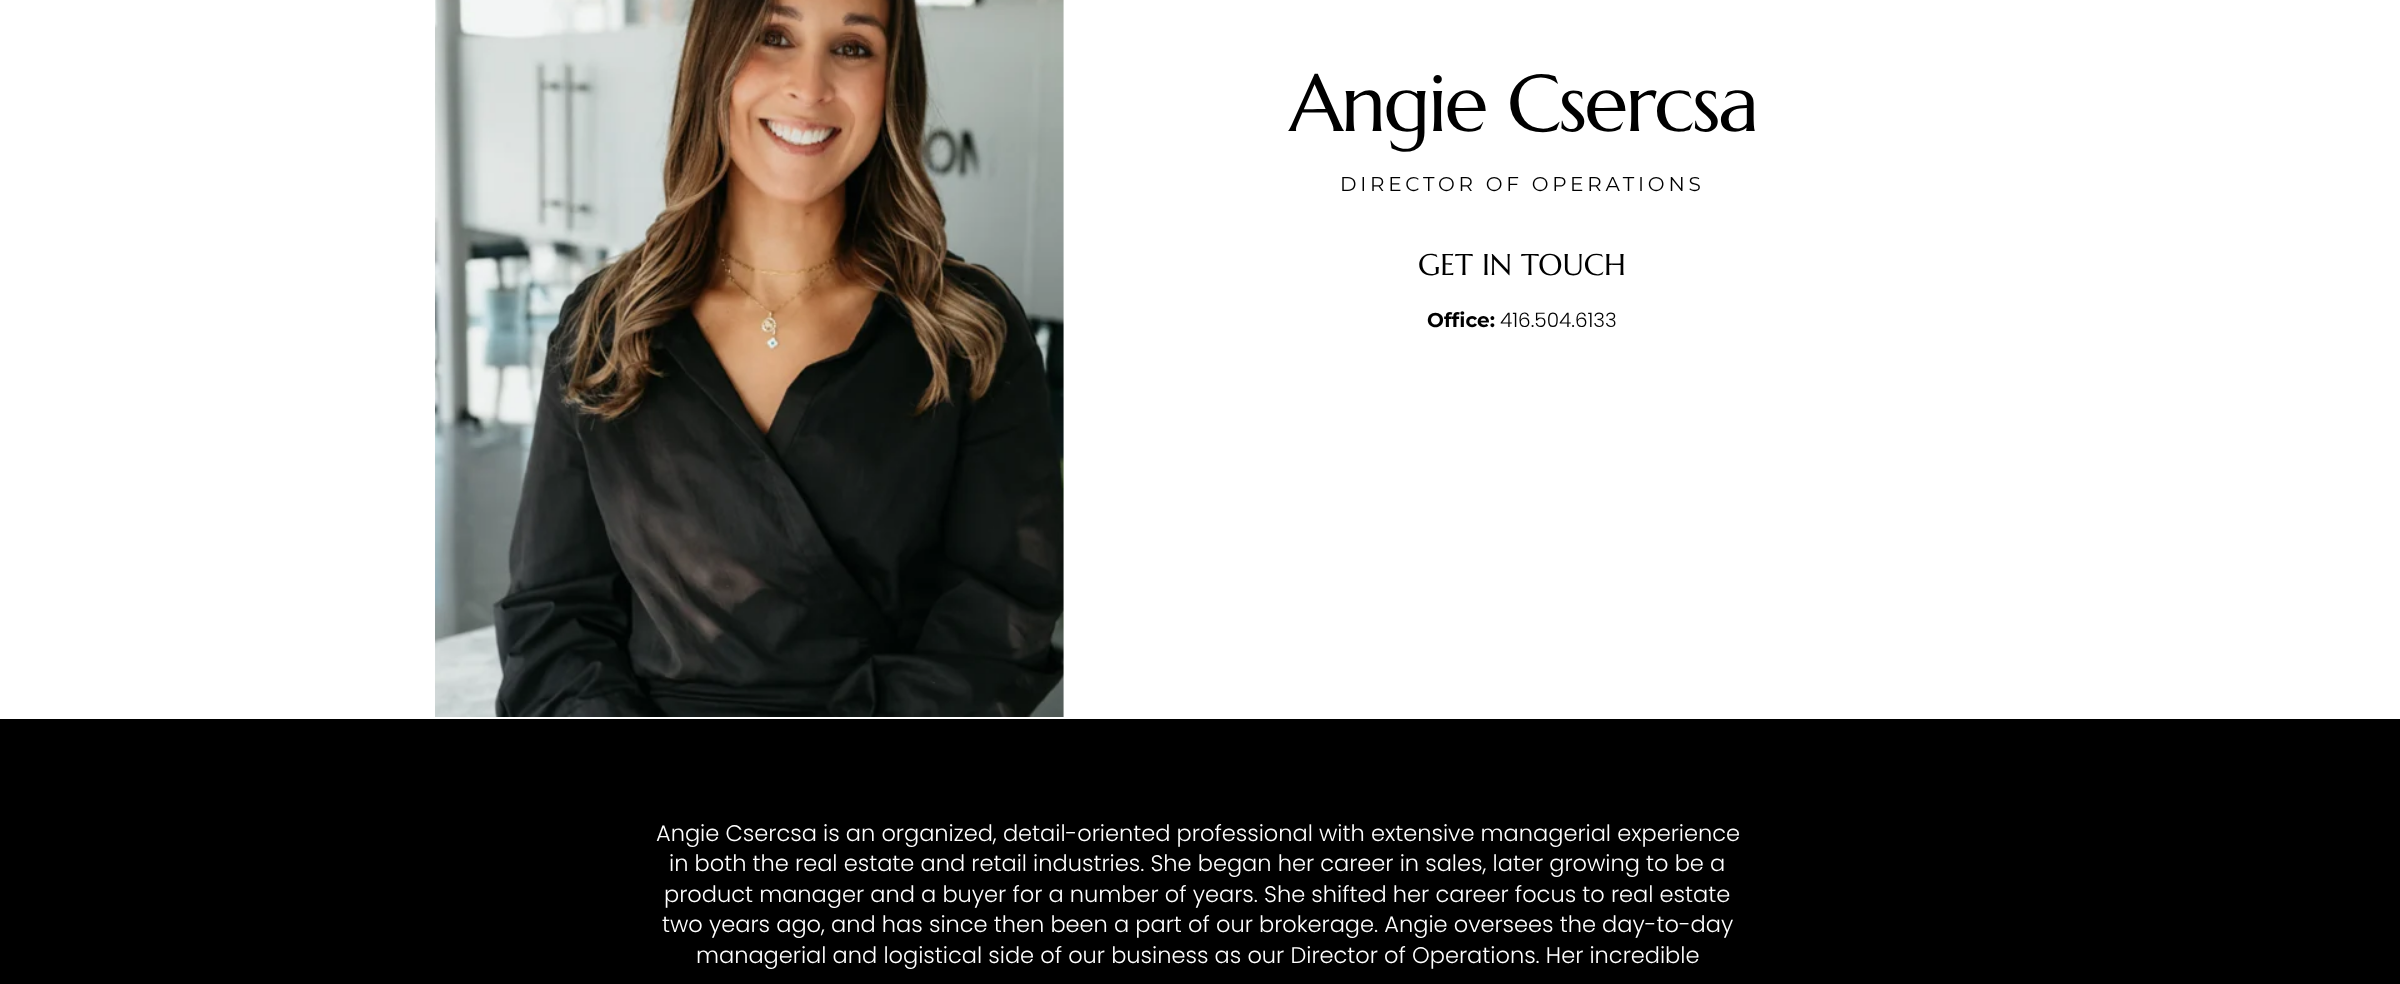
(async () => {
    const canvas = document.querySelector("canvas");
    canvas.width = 2400;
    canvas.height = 984;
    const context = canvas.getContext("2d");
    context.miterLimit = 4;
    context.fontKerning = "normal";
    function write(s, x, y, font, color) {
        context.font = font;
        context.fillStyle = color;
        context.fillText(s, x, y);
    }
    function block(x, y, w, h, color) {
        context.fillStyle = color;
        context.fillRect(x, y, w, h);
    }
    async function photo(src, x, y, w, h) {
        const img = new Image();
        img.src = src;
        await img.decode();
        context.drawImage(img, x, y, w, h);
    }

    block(0, 0, 2400, 984, "rgb(255, 255, 255)");
    await photo("media/1.png", 435, 0, 629, 717);
    context.letterSpacing = "-2.5px";
    write("Angie Csercsa", 1289, 131, "80px Marcellus", "rgb(0, 0, 0)");
    context.letterSpacing = "3.75px";
    write("DIRECTOR OF OPERATIONS", 1340, 191, "100 20px Montserrat", "rgb(0, 0, 0)");
    context.letterSpacing = "0px";
    write("GET IN TOUCH", 1418, 275, "30px Marcellus", "rgb(0, 0, 0)");
    write("Office:", 1427, 327, "100 20px 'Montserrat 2'", "rgb(0, 0, 0)");
    write("416.504.6133", 1500, 327, "300 20px Poppins", "rgb(0, 0, 0)");
    block(0, 719, 2400, 265, "rgb(0, 0, 0)");
    write("Angie Csercsa is an organized, detail-oriented professional with extensive managerial experience", 656, 841, "300 22.5px Poppins", "rgb(255, 255, 255)");
    write("in both the real estate and retail industries. She began her career in sales, later growing to be a", 669, 871, "300 22.5px Poppins", "rgb(255, 255, 255)");
    write("product manager and a buyer for a number of years. She shifted her career focus to real estate", 664, 902, "300 22.5px Poppins", "rgb(255, 255, 255)");
    write("two years ago, and has since then been a part of our brokerage. Angie oversees the day-to-day", 662, 932, "300 22.5px Poppins", "rgb(255, 255, 255)");
    write("managerial and logistical side of our business as our Director of Operations. Her incredible", 696, 963, "300 22.5px Poppins", "rgb(255, 255, 255)");
})();
